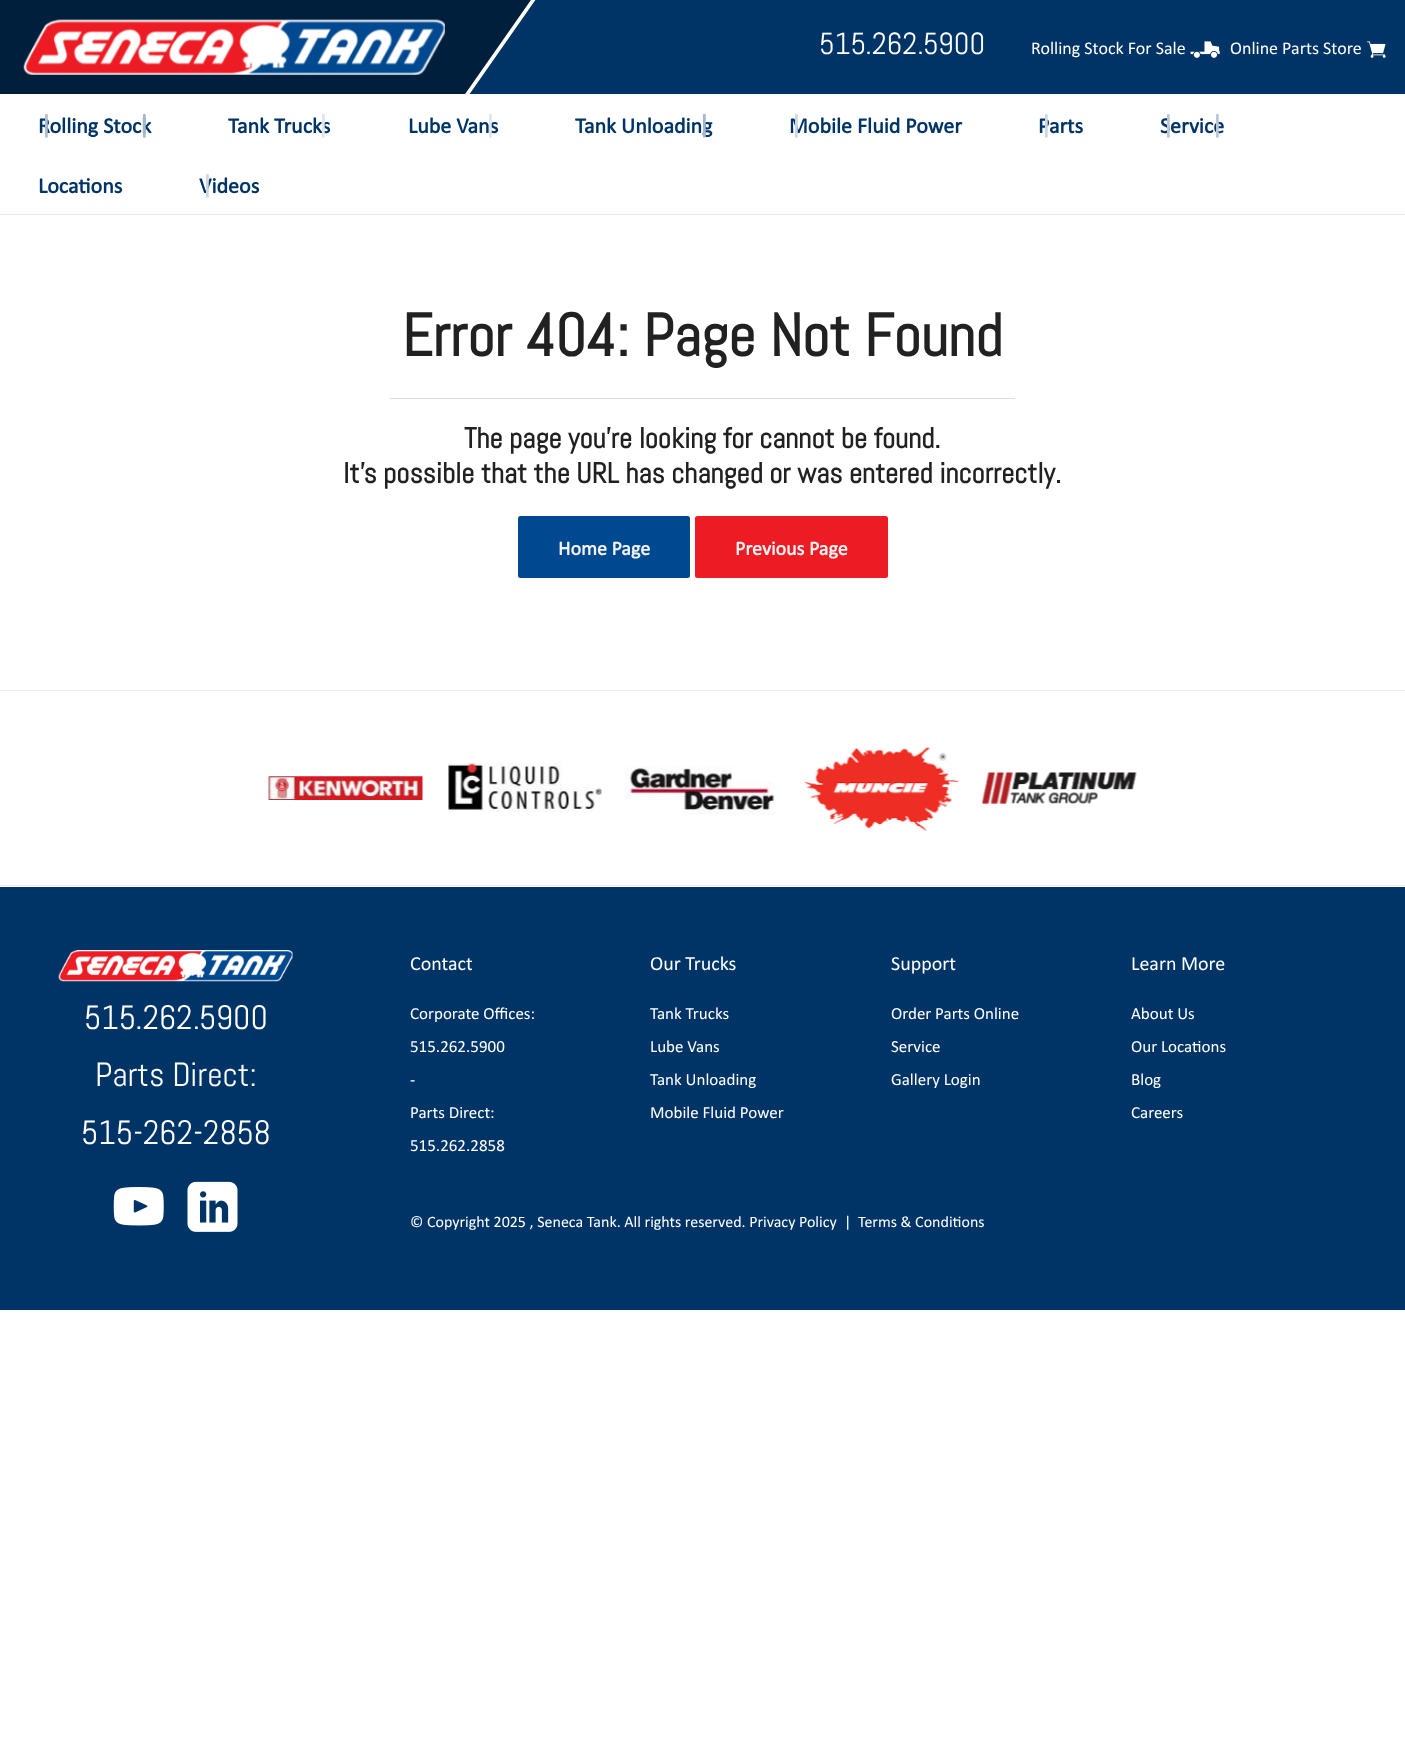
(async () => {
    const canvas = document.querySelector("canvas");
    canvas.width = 1405;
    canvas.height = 1737;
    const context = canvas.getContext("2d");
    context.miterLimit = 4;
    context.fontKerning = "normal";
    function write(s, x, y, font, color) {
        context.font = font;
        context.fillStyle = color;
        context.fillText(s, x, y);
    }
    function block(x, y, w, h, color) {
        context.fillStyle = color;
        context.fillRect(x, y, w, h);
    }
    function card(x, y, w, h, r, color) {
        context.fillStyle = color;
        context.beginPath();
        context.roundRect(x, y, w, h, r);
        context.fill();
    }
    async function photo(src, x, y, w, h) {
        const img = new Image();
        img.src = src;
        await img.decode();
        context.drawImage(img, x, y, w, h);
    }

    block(0, 0, 1405, 1737, "rgb(255, 255, 255)");
    block(470, 0, 935, 94, "rgb(0, 52, 103)");
    context.save();
    context.beginPath();
    context.rect(0, 0, 1405, 94);
    context.clip();
    context.fillStyle = "rgb(0, 31, 60)";
    context.beginPath();
    context.moveTo(-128, 948);
    context.lineTo(-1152, 231);
    context.lineTo(-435, -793);
    context.lineTo(589, -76);
    context.closePath();
    context.fill();
    context.beginPath();
    context.moveTo(-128.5, 945.5);
    context.lineTo(-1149.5, 230.5);
    context.lineTo(-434.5, -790.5);
    context.lineTo(586, -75.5);
    context.closePath();
    context.strokeStyle = "rgb(255, 255, 255)";
    context.lineWidth = 3.7;
    context.stroke();
    context.restore();
    await photo("media/1.png", 23, 19, 422, 56);
    write("515.262.5900", 819, 54, "30.5px Abel", "rgb(255, 255, 255)");
    write("Rolling Stock For Sale", 1031, 54, "18px Calibri", "rgb(255, 255, 255)");
    await photo("media/2.png", 1190, 41, 30, 17);
    write("Online Parts Store", 1230, 54, "18px Calibri", "rgb(255, 255, 255)");
    await photo("media/3.png", 1367, 41, 19, 17);
    block(0, 214, 1405, 1, "rgb(233, 233, 233)");
    write("Rolling Stock", 38, 133, "bold 22px Calibri", "rgb(0, 52, 103)");
    write("|", 40, 133, "bold 26px Calibri", "rgb(173, 190, 206)");
    write("|", 138, 133, "bold 26px Calibri", "rgb(165, 183, 201)");
    write("Tank Trucks", 228, 133, "bold 22px Calibri", "rgb(0, 52, 103)");
    write("|", 317, 133, "bold 26px Calibri", "rgb(223, 230, 236)");
    write("Lube Vans", 408, 133, "bold 22px Calibri", "rgb(0, 52, 103)");
    write("|", 484, 133, "bold 26px Calibri", "rgb(223, 230, 236)");
    write("Tank Unloading", 575, 133, "bold 22px Calibri", "rgb(0, 52, 103)");
    write("|", 698, 133, "bold 26px Calibri", "rgb(165, 183, 201)");
    write("Mobile Fluid Power", 789, 133, "bold 22px Calibri", "rgb(0, 52, 103)");
    write("|", 790, 133, "bold 26px Calibri", "rgb(206, 216, 226)");
    write("Parts", 1038, 133, "bold 22px Calibri", "rgb(0, 52, 103)");
    write("|", 1040, 133, "bold 26px Calibri", "rgb(206, 216, 226)");
    write("Service", 1160, 133, "bold 22px Calibri", "rgb(0, 52, 103)");
    write("|", 1162, 133, "bold 26px Calibri", "rgb(186, 200, 214)");
    write("|", 1211, 133, "bold 26px Calibri", "rgb(186, 200, 214)");
    write("Locations", 38, 193, "bold 22px Calibri", "rgb(0, 52, 103)");
    write("Videos", 199, 193, "bold 22px Calibri", "rgb(0, 52, 103)");
    write("|", 201, 193, "bold 26px Calibri", "rgb(206, 216, 226)");
    write("Error 404: Page Not Found", 402, 356, "bold 60px Abel", "rgb(33, 33, 33)");
    block(390, 398, 625, 1, "rgb(222, 222, 222)");
    write("The page you're looking for cannot be found.", 464, 448, "bold 28.75px Abel", "rgb(33, 33, 33)");
    write("It's possible that the URL has changed or was entered incorrectly.", 343, 483, "bold 28.75px Abel", "rgb(33, 33, 33)");
    card(518, 516, 172, 62, 2.5, "rgb(0, 73, 144)");
    write("Home Page", 558, 555, "bold 20px Calibri", "rgb(242, 242, 242)");
    card(695, 516, 193, 62, 2.5, "rgb(237, 28, 36)");
    write("Previous Page", 735, 555, "bold 20px Calibri", "rgb(242, 242, 242)");
    block(0, 690, 1405, 1, "rgb(237, 237, 237)");
    block(0, 885, 1405, 1, "rgb(237, 237, 237)");
    await photo("media/4.png", 268, 776, 155, 24);
    await photo("media/5.png", 447, 762, 155, 50);
    await photo("media/6.png", 624, 766, 151, 49);
    await photo("media/7.png", 804, 747, 156, 85);
    await photo("media/8.png", 982, 772, 155, 32);
    block(0, 887, 1405, 423, "rgb(0, 52, 103)");
    await photo("media/9.png", 58, 950, 235, 32);
    write("515.262.5900", 84, 1029, "33.75px Abel", "rgb(255, 255, 255)");
    write("Parts Direct:", 95, 1086, "33.75px Abel", "rgb(255, 255, 255)");
    write("515-262-2858", 81, 1144, "33.75px Abel", "rgb(255, 255, 255)");
    await photo("media/10.png", 113, 1187, 51, 39);
    await photo("media/11.png", 187, 1181, 51, 51);
    write("Contact", 410, 970, "20px Calibri", "rgb(255, 255, 255)");
    write("Corporate Offices:", 410, 1019, "17px Calibri", "rgb(255, 255, 255)");
    write("515.262.5900", 410, 1052, "17px Calibri", "rgb(255, 255, 255)");
    write("-", 410, 1085, "17px Calibri", "rgb(255, 255, 255)");
    write("Parts Direct:", 410, 1118, "17px Calibri", "rgb(255, 255, 255)");
    write("515.262.2858", 410, 1151, "17px Calibri", "rgb(255, 255, 255)");
    write("Our Trucks", 650, 970, "20px Calibri", "rgb(255, 255, 255)");
    write("Tank Trucks", 650, 1019, "17px Calibri", "rgb(255, 255, 255)");
    write("Lube Vans", 650, 1052, "17px Calibri", "rgb(255, 255, 255)");
    write("Tank Unloading", 650, 1085, "17px Calibri", "rgb(255, 255, 255)");
    write("Mobile Fluid Power", 650, 1118, "17px Calibri", "rgb(255, 255, 255)");
    write("Support", 891, 970, "20px Calibri", "rgb(255, 255, 255)");
    write("Order Parts Online", 891, 1019, "17px Calibri", "rgb(255, 255, 255)");
    write("Service", 891, 1052, "17px Calibri", "rgb(255, 255, 255)");
    write("Gallery Login", 891, 1085, "17px Calibri", "rgb(255, 255, 255)");
    write("Learn More", 1131, 970, "20px Calibri", "rgb(255, 255, 255)");
    write("About Us", 1131, 1019, "17px Calibri", "rgb(255, 255, 255)");
    write("Our Locations", 1131, 1052, "17px Calibri", "rgb(255, 255, 255)");
    write("Blog", 1131, 1085, "17px Calibri", "rgb(255, 255, 255)");
    write("Careers", 1131, 1118, "17px Calibri", "rgb(255, 255, 255)");
    write("© Copyright 2025 , Seneca Tank. All rights reserved. Privacy Policy", 410, 1227, "16px Calibri", "rgb(255, 255, 255)");
    write("|", 844, 1227, "16px Calibri", "rgb(255, 255, 255)");
    write("Terms & Conditions", 858, 1227, "16px Calibri", "rgb(255, 255, 255)");
})();
